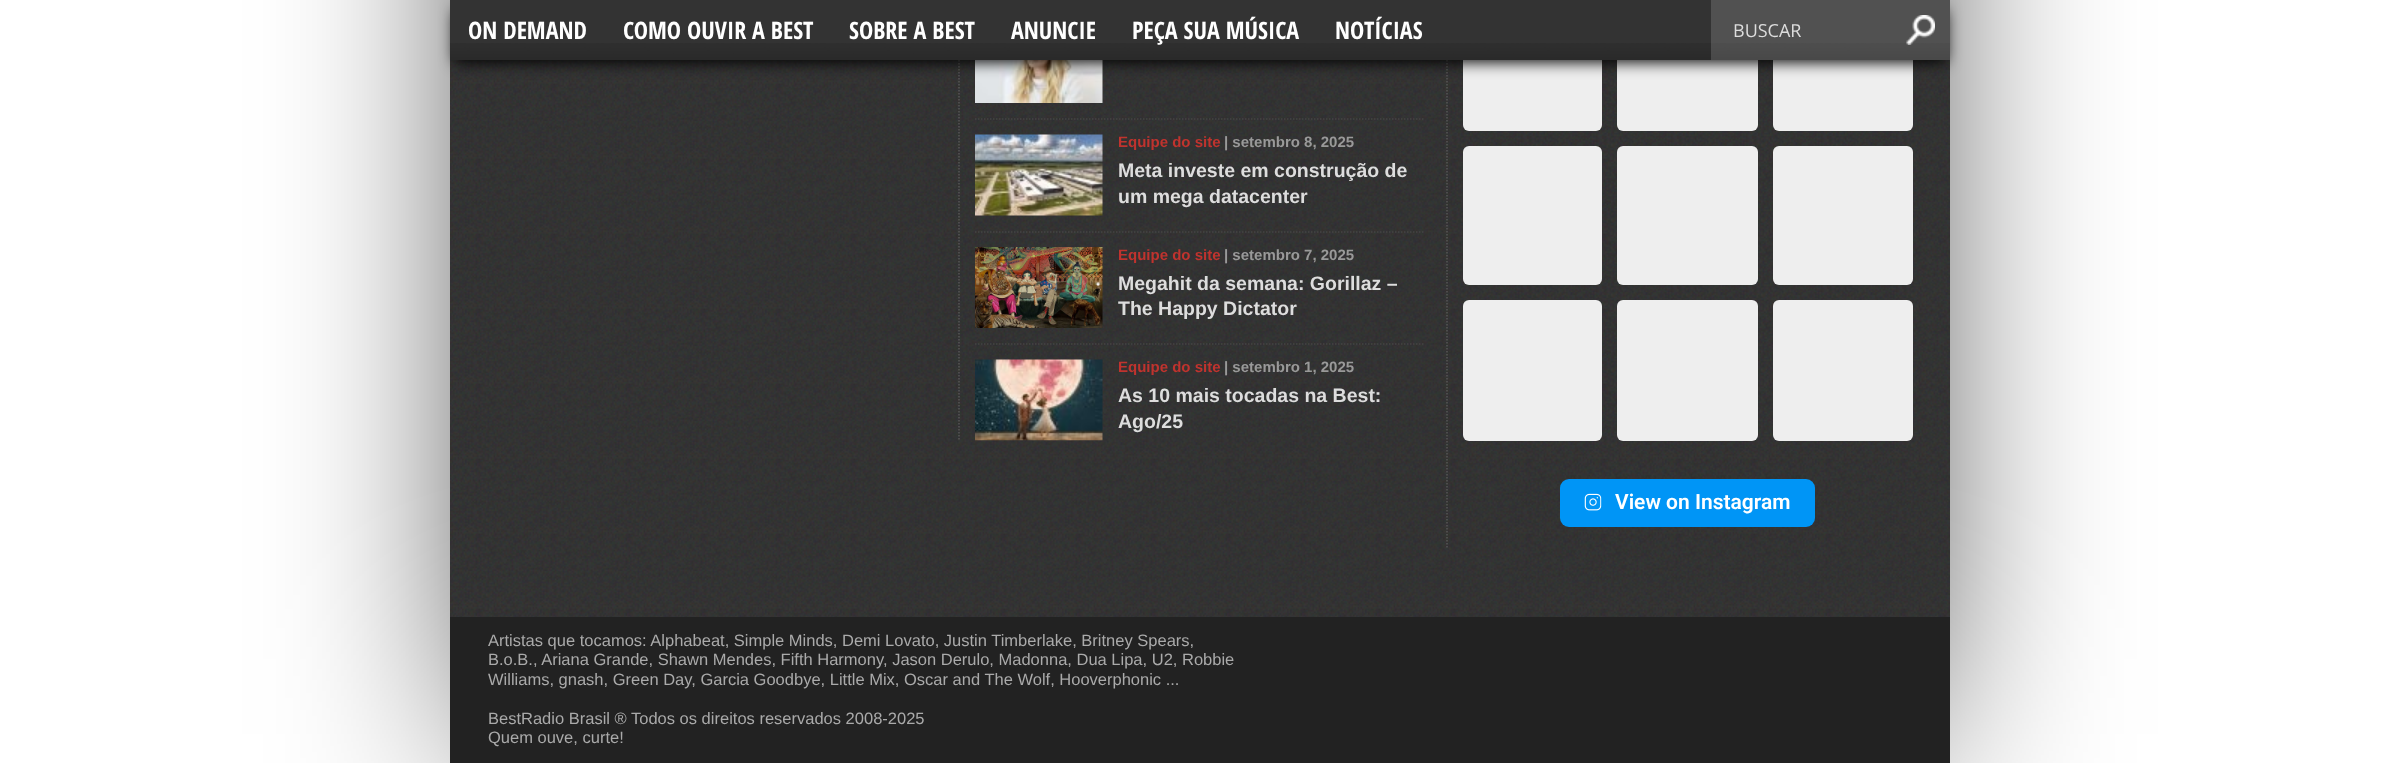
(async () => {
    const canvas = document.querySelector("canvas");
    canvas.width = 2400;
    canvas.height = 763;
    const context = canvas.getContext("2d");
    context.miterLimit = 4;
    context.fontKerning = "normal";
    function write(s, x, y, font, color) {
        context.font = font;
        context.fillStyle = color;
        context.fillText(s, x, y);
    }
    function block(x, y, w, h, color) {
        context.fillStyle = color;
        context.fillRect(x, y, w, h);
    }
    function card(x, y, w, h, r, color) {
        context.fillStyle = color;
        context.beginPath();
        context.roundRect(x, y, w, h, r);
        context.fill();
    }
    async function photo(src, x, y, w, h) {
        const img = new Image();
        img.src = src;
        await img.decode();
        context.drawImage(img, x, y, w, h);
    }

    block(0, 0, 2400, 763, "rgb(255, 255, 255)");
    context.fillStyle = "rgb(0, 0, 0)";
    context.filter = "blur(112.5px)";
    context.beginPath();
    context.rect(510, -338, 1380, 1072);
    context.fill();
    context.filter = "none";
    await photo("media/3.png", 450, 60, 1500, 557);
    context.beginPath();
    context.moveTo(959, -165);
    context.lineTo(959, 441);
    context.strokeStyle = "rgb(85, 85, 85)";
    context.lineWidth = 1.5;
    context.setLineDash([1.5, 1.5]);
    context.stroke();
    await photo("media/4.png", 975, 60, 128, 43);
    context.beginPath();
    context.moveTo(1447, -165);
    context.lineTo(1447, 549);
    context.stroke();
    card(1463, -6, 139, 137, 6, "rgb(238, 238, 238)");
    card(1617, -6, 141, 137, 6, "rgb(238, 238, 238)");
    card(1773, -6, 140, 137, 6, "rgb(238, 238, 238)");
    context.fillStyle = "rgb(0, 0, 0)";
    context.filter = "blur(7.5px)";
    context.beginPath();
    context.rect(455, 11, 1491, 51);
    context.fill();
    context.filter = "none";
    block(450, 0, 1500, 60, "rgb(51, 51, 51)");
    await photo("media/1.png", 450, 43, 1500, 17);
    write("ON DEMAND", 468, 39, "bold 24px Open Sans Condensed", "rgb(255, 255, 255)");
    write("COMO OUVIR A BEST", 623, 39, "bold 24px Open Sans Condensed", "rgb(255, 255, 255)");
    write("SOBRE A BEST", 849, 39, "bold 24px Open Sans Condensed", "rgb(255, 255, 255)");
    write("ANUNCIE", 1011, 39, "bold 24px Open Sans Condensed", "rgb(255, 255, 255)");
    write("PEÇA SUA MÚSICA", 1132, 39, "bold 24px Open Sans Condensed", "rgb(255, 255, 255)");
    write("NOTÍCIAS", 1335, 39, "bold 24px Open Sans Condensed", "rgb(255, 255, 255)");
    block(1711, 0, 239, 60, "rgba(255, 255, 255, 0.15)");
    await photo("media/2.png", 1906, 15, 29, 30);
    write("BUSCAR", 1733, 37, "18px Open Sans", "rgb(221, 221, 221)");
    context.beginPath();
    context.moveTo(975, 119);
    context.lineTo(1425, 119);
    context.strokeStyle = "rgb(68, 68, 68)";
    context.stroke();
    await photo("media/5.png", 975, 134, 128, 82);
    write("Equipe do site", 1118, 147, "bold 15px Liberation Sans", "rgb(192, 51, 46)");
    write("| setembro 8, 2025", 1224, 147, "bold 15px Liberation Sans", "rgb(153, 153, 153)");
    write("Meta investe em construção de", 1118, 177, "bold 19.5px Liberation Sans", "rgb(221, 221, 221)");
    write("um mega datacenter", 1118, 203, "bold 19.5px Liberation Sans", "rgb(221, 221, 221)");
    context.beginPath();
    context.moveTo(975, 232);
    context.lineTo(1425, 232);
    context.stroke();
    await photo("media/6.png", 975, 247, 128, 81);
    write("Equipe do site", 1118, 260, "bold 15px Liberation Sans", "rgb(192, 51, 46)");
    write("| setembro 7, 2025", 1224, 260, "bold 15px Liberation Sans", "rgb(153, 153, 153)");
    write("Megahit da semana: Gorillaz –", 1118, 290, "bold 19.5px Liberation Sans", "rgb(221, 221, 221)");
    write("The Happy Dictator", 1118, 315, "bold 19.5px Liberation Sans", "rgb(221, 221, 221)");
    context.beginPath();
    context.moveTo(975, 344);
    context.lineTo(1425, 344);
    context.stroke();
    await photo("media/7.png", 975, 359, 128, 82);
    write("Equipe do site", 1118, 372, "bold 15px Liberation Sans", "rgb(192, 51, 46)");
    write("| setembro 1, 2025", 1224, 372, "bold 15px Liberation Sans", "rgb(153, 153, 153)");
    write("As 10 mais tocadas na Best:", 1118, 402, "bold 19.5px Liberation Sans", "rgb(221, 221, 221)");
    write("Ago/25", 1118, 428, "bold 19.5px Liberation Sans", "rgb(221, 221, 221)");
    card(1463, 146, 139, 139, 6, "rgb(238, 238, 238)");
    card(1617, 146, 141, 139, 6, "rgb(238, 238, 238)");
    card(1773, 146, 140, 139, 6, "rgb(238, 238, 238)");
    card(1463, 300, 139, 141, 6, "rgb(238, 238, 238)");
    card(1617, 300, 141, 141, 6, "rgb(238, 238, 238)");
    card(1773, 300, 140, 141, 6, "rgb(238, 238, 238)");
    card(1560, 479, 255, 48, 9, "rgb(0, 149, 246)");
    await photo("media/8.png", 1584, 493, 18, 18);
    write("View on Instagram", 1615, 509, "600 21px Roboto", "rgb(255, 255, 255)");
    block(450, 617, 1500, 146, "rgb(34, 34, 34)");
    write("Artistas que tocamos: Alphabeat, Simple Minds, Demi Lovato, Justin Timberlake, Britney Spears,", 488, 646, "16.5px Liberation Sans", "rgb(170, 170, 170)");
    write("B.o.B., Ariana Grande, Shawn Mendes, Fifth Harmony, Jason Derulo, Madonna, Dua Lipa, U2, Robbie", 488, 665, "16.5px Liberation Sans", "rgb(170, 170, 170)");
    write("Williams, gnash, Green Day, Garcia Goodbye, Little Mix, Oscar and The Wolf, Hooverphonic ...", 488, 685, "16.5px Liberation Sans", "rgb(170, 170, 170)");
    write("BestRadio Brasil ® Todos os direitos reservados 2008-2025", 488, 724, "16.5px Liberation Sans", "rgb(170, 170, 170)");
    write("Quem ouve, curte!", 488, 743, "16.5px Liberation Sans", "rgb(170, 170, 170)");
})();
